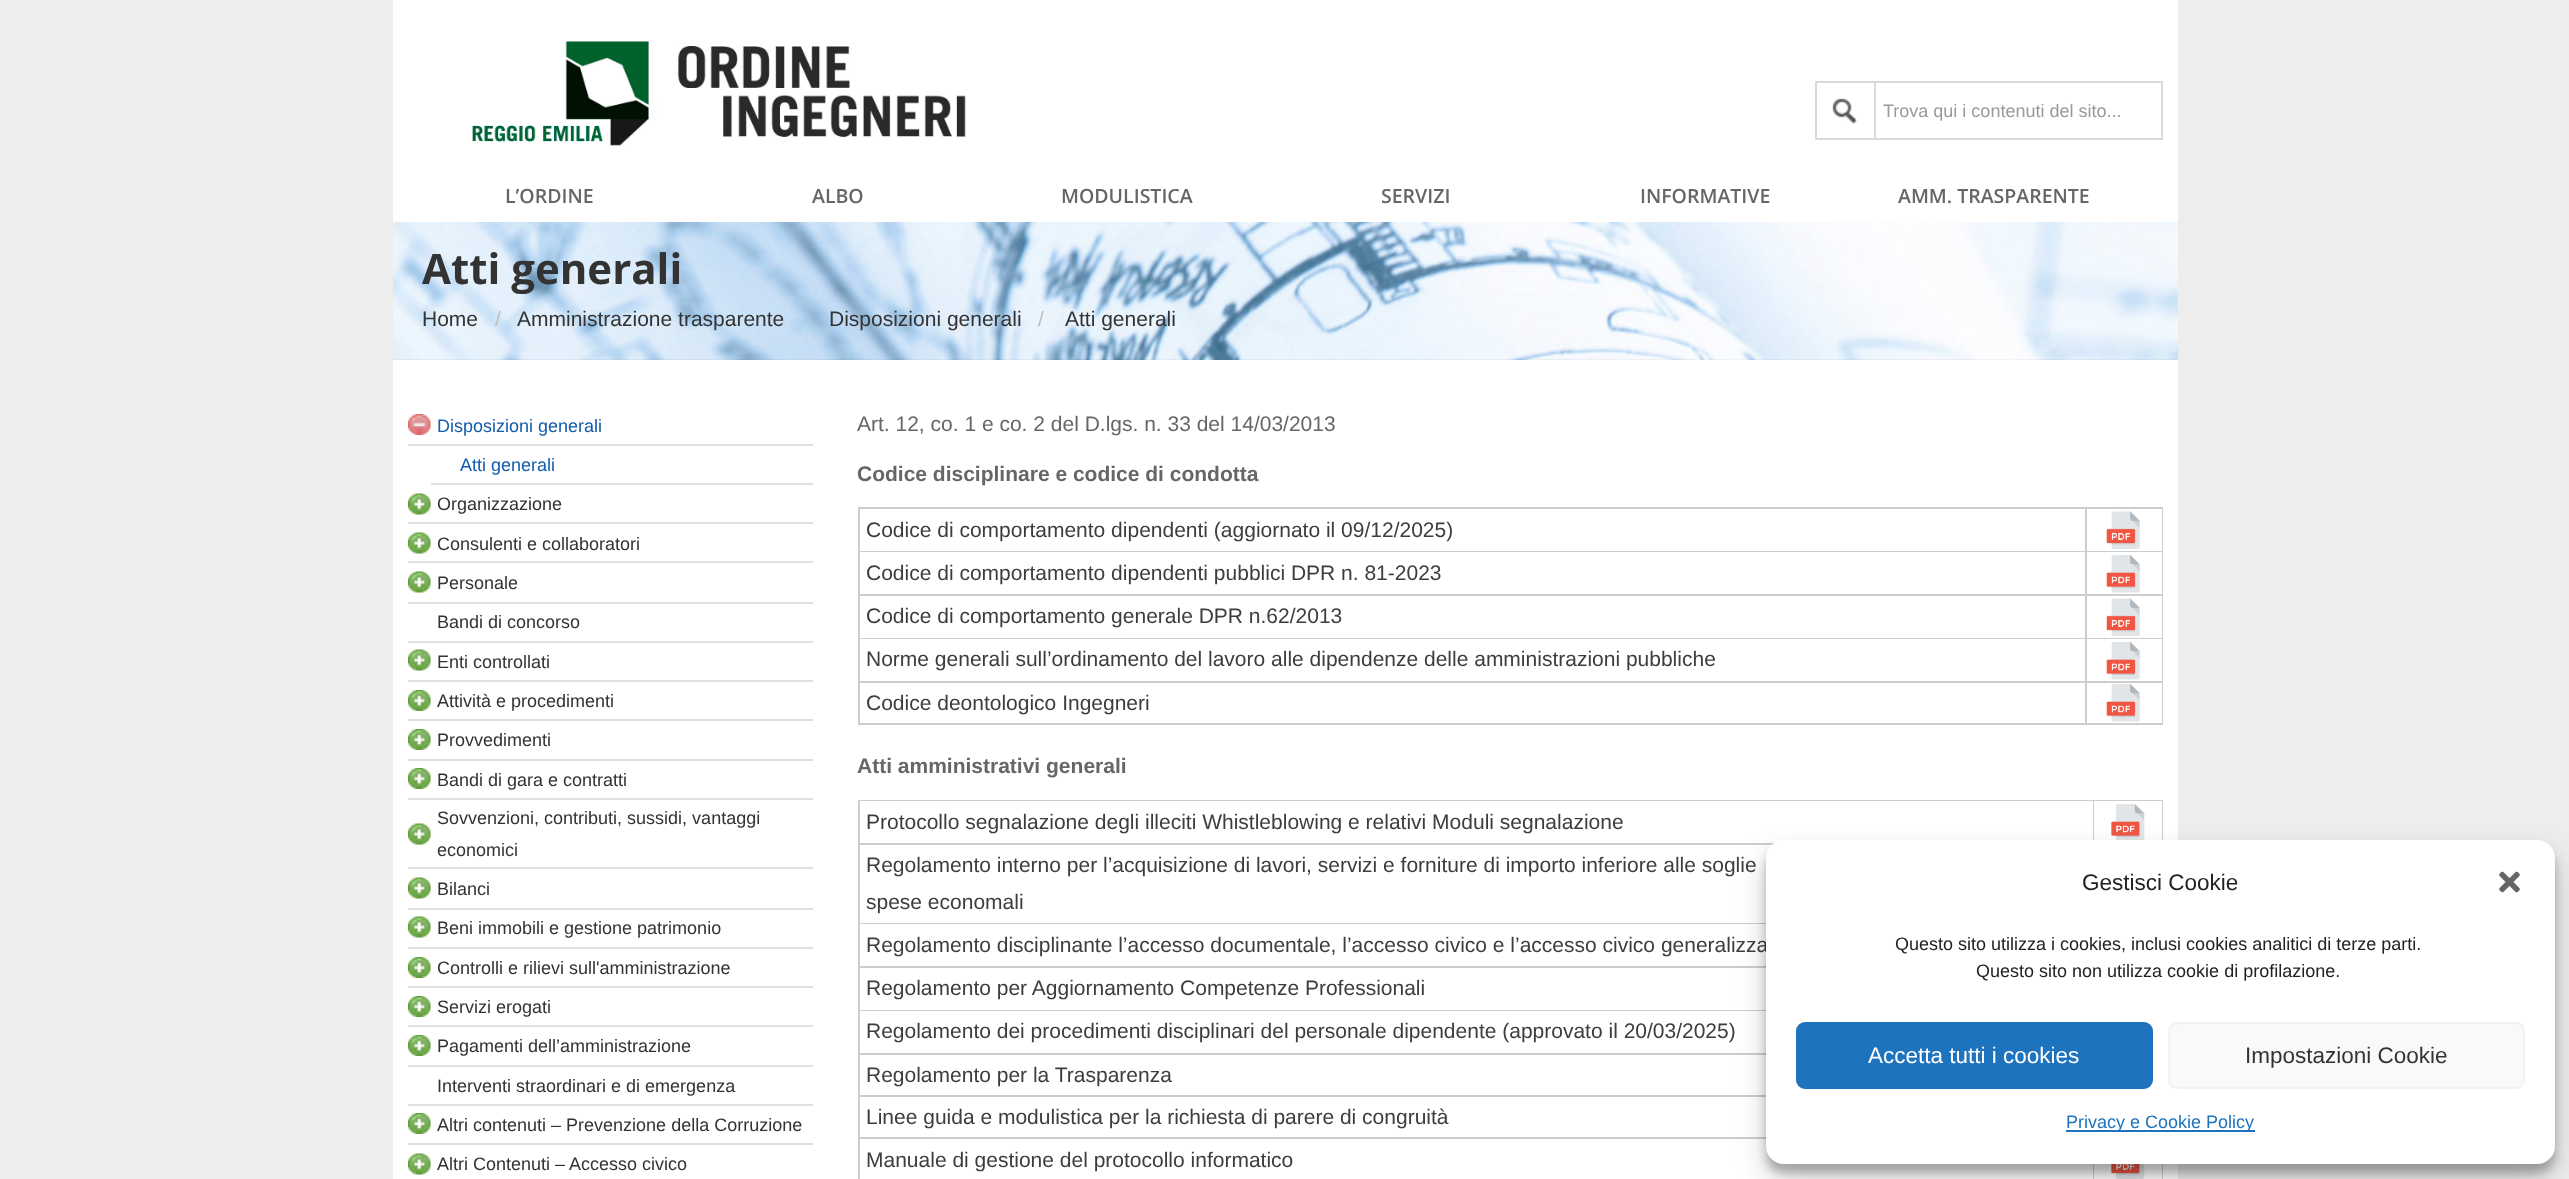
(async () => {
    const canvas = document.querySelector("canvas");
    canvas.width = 2569;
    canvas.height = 1179;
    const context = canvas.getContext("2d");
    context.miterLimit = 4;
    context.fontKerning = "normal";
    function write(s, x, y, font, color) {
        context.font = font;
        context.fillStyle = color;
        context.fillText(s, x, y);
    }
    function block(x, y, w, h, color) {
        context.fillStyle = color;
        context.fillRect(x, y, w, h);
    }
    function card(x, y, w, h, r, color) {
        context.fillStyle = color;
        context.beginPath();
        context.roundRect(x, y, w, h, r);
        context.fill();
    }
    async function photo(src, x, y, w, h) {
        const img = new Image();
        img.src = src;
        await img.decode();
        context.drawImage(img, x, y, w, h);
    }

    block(0, 0, 2569, 1179, "rgb(238, 237, 237)");
    block(393, 0, 1785, 222, "rgb(255, 255, 255)");
    await photo("media/1.png", 472, 41, 494, 105);
    context.strokeStyle = "rgb(217, 217, 217)";
    context.lineWidth = 2;
    context.strokeRect(1816, 82, 346, 57);
    await photo("media/2.png", 1832, 98, 26, 26);
    block(1874, 83, 2, 57, "rgb(217, 217, 217)");
    write("Trova qui i contenuti del sito...", 1883, 117, "18px Liberation Sans", "rgb(153, 153, 153)");
    write("L’ORDINE", 505, 203, "600 19.5px Open Sans", "rgb(102, 102, 102)");
    write("ALBO", 812, 203, "600 19.5px Open Sans", "rgb(102, 102, 102)");
    write("MODULISTICA", 1061, 203, "600 19.5px Open Sans", "rgb(102, 102, 102)");
    write("SERVIZI", 1381, 203, "600 19.5px Open Sans", "rgb(102, 102, 102)");
    write("INFORMATIVE", 1640, 203, "600 19.5px Open Sans", "rgb(102, 102, 102)");
    write("AMM. TRASPARENTE", 1898, 203, "600 19.5px Open Sans", "rgb(102, 102, 102)");
    await photo("media/3.png", 393, 222, 1785, 138);
    block(393, 359, 1785, 1, "rgba(0, 0, 0, 0.04)");
    write("Atti generali", 422, 284, "bold 42px Open Sans", "rgb(51, 51, 51)");
    write("Home", 422, 326, "21px Liberation Sans", "rgb(51, 51, 51)");
    write("/", 495, 326, "21px Liberation Sans", "rgb(191, 191, 191)");
    write("Amministrazione trasparente", 517, 326, "21px Liberation Sans", "rgb(51, 51, 51)");
    write("Disposizioni generali", 829, 326, "21px Liberation Sans", "rgb(51, 51, 51)");
    write("/", 1038, 326, "21px Liberation Sans", "rgb(191, 191, 191)");
    write("Atti generali", 1065, 326, "21px Liberation Sans", "rgb(51, 51, 51)");
    block(393, 360, 1785, 819, "rgb(255, 255, 255)");
    await photo("media/4.png", 408, 414, 23, 21);
    block(408, 444, 405, 2, "rgb(224, 224, 224)");
    write("Disposizioni generali", 437, 432, "18px Liberation Sans", "rgb(19, 92, 174)");
    block(431, 483, 382, 2, "rgb(224, 224, 224)");
    write("Atti generali", 460, 471, "18px Liberation Sans", "rgb(19, 92, 174)");
    await photo("media/5.png", 408, 493, 23, 22);
    block(408, 522, 405, 2, "rgb(224, 224, 224)");
    write("Organizzazione", 437, 510, "18px Liberation Sans", "rgb(51, 51, 51)");
    await photo("media/5.png", 408, 532, 23, 22);
    block(408, 561, 405, 2, "rgb(224, 224, 224)");
    write("Consulenti e collaboratori", 437, 550, "18px Liberation Sans", "rgb(51, 51, 51)");
    await photo("media/5.png", 408, 571, 23, 22);
    block(408, 602, 405, 2, "rgb(224, 224, 224)");
    write("Personale", 437, 589, "18px Liberation Sans", "rgb(51, 51, 51)");
    block(408, 641, 405, 2, "rgb(224, 224, 224)");
    write("Bandi di concorso", 437, 628, "18px Liberation Sans", "rgb(51, 51, 51)");
    await photo("media/5.png", 408, 649, 23, 22);
    block(408, 680, 405, 2, "rgb(224, 224, 224)");
    write("Enti controllati", 437, 668, "18px Liberation Sans", "rgb(51, 51, 51)");
    await photo("media/6.png", 408, 690, 23, 21);
    block(408, 719, 405, 2, "rgb(224, 224, 224)");
    write("Attività e procedimenti", 437, 707, "18px Liberation Sans", "rgb(51, 51, 51)");
    await photo("media/6.png", 408, 729, 23, 21);
    block(408, 759, 405, 2, "rgb(224, 224, 224)");
    write("Provvedimenti", 437, 746, "18px Liberation Sans", "rgb(51, 51, 51)");
    await photo("media/6.png", 408, 768, 23, 21);
    block(408, 798, 405, 2, "rgb(224, 224, 224)");
    write("Bandi di gara e contratti", 437, 786, "18px Liberation Sans", "rgb(51, 51, 51)");
    await photo("media/5.png", 408, 823, 23, 22);
    block(408, 867, 405, 2, "rgb(224, 224, 224)");
    write("Sovvenzioni, contributi, sussidi, vantaggi", 437, 824, "18px Liberation Sans", "rgb(51, 51, 51)");
    write("economici", 437, 856, "18px Liberation Sans", "rgb(51, 51, 51)");
    await photo("media/5.png", 408, 877, 23, 22);
    block(408, 908, 405, 2, "rgb(224, 224, 224)");
    write("Bilanci", 437, 895, "18px Liberation Sans", "rgb(51, 51, 51)");
    await photo("media/5.png", 408, 916, 23, 22);
    block(408, 947, 405, 2, "rgb(224, 224, 224)");
    write("Beni immobili e gestione patrimonio", 437, 934, "18px Liberation Sans", "rgb(51, 51, 51)");
    await photo("media/6.png", 408, 957, 23, 21);
    block(408, 986, 405, 2, "rgb(224, 224, 224)");
    write("Controlli e rilievi sull'amministrazione", 437, 974, "18px Liberation Sans", "rgb(51, 51, 51)");
    await photo("media/6.png", 408, 996, 23, 21);
    block(408, 1025, 405, 2, "rgb(224, 224, 224)");
    write("Servizi erogati", 437, 1013, "18px Liberation Sans", "rgb(51, 51, 51)");
    await photo("media/6.png", 408, 1035, 23, 21);
    block(408, 1065, 405, 2, "rgb(224, 224, 224)");
    write("Pagamenti dell’amministrazione", 437, 1052, "18px Liberation Sans", "rgb(51, 51, 51)");
    block(408, 1104, 405, 2, "rgb(224, 224, 224)");
    write("Interventi straordinari e di emergenza", 437, 1092, "18px Liberation Sans", "rgb(51, 51, 51)");
    await photo("media/6.png", 408, 1113, 23, 21);
    block(408, 1143, 405, 2, "rgb(224, 224, 224)");
    write("Altri contenuti – Prevenzione della Corruzione", 437, 1131, "18px Liberation Sans", "rgb(51, 51, 51)");
    await photo("media/5.png", 408, 1153, 23, 22);
    write("Altri Contenuti – Accesso civico", 437, 1170, "18px Liberation Sans", "rgb(51, 51, 51)");
    write("Art. 12, co. 1 e co. 2 del D.lgs. n. 33 del 14/03/2013", 857, 431, "21px Liberation Sans", "rgb(102, 102, 102)");
    write("Codice disciplinare e codice di condotta", 857, 481, "bold 21px Liberation Sans", "rgb(102, 102, 102)");
    block(858, 507, 1305, 218, "rgb(205, 205, 205)");
    block(860, 509, 1225, 42, "rgb(255, 255, 255)");
    write("Codice di comportamento dipendenti (aggiornato il 09/12/2025)", 866, 537, "21px Liberation Sans", "rgb(61, 61, 61)");
    block(2087, 509, 75, 42, "rgb(255, 255, 255)");
    await photo("media/7.png", 2106, 511, 34, 38);
    block(860, 552, 1225, 42, "rgb(255, 255, 255)");
    write("Codice di comportamento dipendenti pubblici DPR n. 81-2023", 866, 580, "21px Liberation Sans", "rgb(61, 61, 61)");
    block(2087, 552, 75, 42, "rgb(255, 255, 255)");
    await photo("media/8.png", 2106, 555, 34, 38);
    block(860, 596, 1225, 42, "rgb(255, 255, 255)");
    write("Codice di comportamento generale DPR n.62/2013", 866, 623, "21px Liberation Sans", "rgb(61, 61, 61)");
    block(2087, 596, 75, 42, "rgb(255, 255, 255)");
    await photo("media/7.png", 2106, 598, 34, 38);
    block(860, 639, 1225, 42, "rgb(255, 255, 255)");
    write("Norme generali sull’ordinamento del lavoro alle dipendenze delle amministrazioni pubbliche", 866, 666, "21px Liberation Sans", "rgb(61, 61, 61)");
    block(2087, 639, 75, 42, "rgb(255, 255, 255)");
    await photo("media/8.png", 2106, 642, 34, 38);
    block(860, 683, 1225, 40, "rgb(255, 255, 255)");
    write("Codice deontologico Ingegneri", 866, 710, "21px Liberation Sans", "rgb(61, 61, 61)");
    block(2087, 683, 75, 40, "rgb(255, 255, 255)");
    await photo("media/8.png", 2106, 684, 34, 38);
    write("Atti amministrativi generali", 857, 773, "bold 21px Liberation Sans", "rgb(102, 102, 102)");
    block(858, 800, 1305, 379, "rgb(205, 205, 205)");
    block(860, 801, 1233, 42, "rgb(255, 255, 255)");
    write("Protocollo segnalazione degli illeciti Whistleblowing e relativi Moduli segnalazione", 866, 829, "21px Liberation Sans", "rgb(61, 61, 61)");
    block(2094, 801, 68, 39, "rgb(255, 255, 255)");
    await photo("media/9.png", 2111, 804, 34, 36);
    block(860, 845, 912, 78, "rgb(255, 255, 255)");
    write("Regolamento interno per l’acquisizione di lavori, servizi e forniture di importo inferiore alle soglie", 866, 872, "21px Liberation Sans", "rgb(61, 61, 61)");
    write("spese economali", 866, 909, "21px Liberation Sans", "rgb(61, 61, 61)");
    block(860, 924, 906, 42, "rgb(255, 255, 255)");
    write("Regolamento disciplinante l’accesso documentale, l’accesso civico e l’accesso civico generalizza", 866, 952, "21px Liberation Sans", "rgb(61, 61, 61)");
    block(860, 968, 906, 42, "rgb(255, 255, 255)");
    write("Regolamento per Aggiornamento Competenze Professionali", 866, 995, "21px Liberation Sans", "rgb(61, 61, 61)");
    block(860, 1011, 906, 42, "rgb(255, 255, 255)");
    write("Regolamento dei procedimenti disciplinari del personale dipendente (approvato il 20/03/2025)", 866, 1038, "21px Liberation Sans", "rgb(61, 61, 61)");
    block(860, 1055, 906, 40, "rgb(255, 255, 255)");
    write("Regolamento per la Trasparenza", 866, 1082, "21px Liberation Sans", "rgb(61, 61, 61)");
    block(860, 1097, 906, 40, "rgb(255, 255, 255)");
    write("Linee guida e modulistica per la richiesta di parere di congruità", 866, 1124, "21px Liberation Sans", "rgb(61, 61, 61)");
    block(860, 1139, 1233, 40, "rgb(255, 255, 255)");
    write("Manuale di gestione del protocollo informatico", 866, 1167, "21px Liberation Sans", "rgb(61, 61, 61)");
    block(2094, 1164, 68, 15, "rgb(255, 255, 255)");
    await photo("media/10.png", 2111, 1164, 34, 15);
    context.fillStyle = "rgba(0, 0, 0, 0.23)";
    context.filter = "blur(4.5px)";
    context.beginPath();
    context.roundRect(1766, 849, 789, 324, 18);
    context.fill();
    context.filter = "none";
    context.fillStyle = "rgba(0, 0, 0, 0.19)";
    context.filter = "blur(15px)";
    context.beginPath();
    context.roundRect(1766, 855, 789, 324, 18);
    context.fill();
    context.filter = "none";
    card(1766, 840, 789, 324, 18, "rgb(255, 255, 255)");
    write("Gestisci Cookie", 2082, 890, "22.5px Liberation Sans", "rgb(34, 34, 34)");
    await photo("media/11.png", 2499, 871, 21, 22);
    write("Questo sito utilizza i cookies, inclusi cookies analitici di terze parti.", 1895, 950, "18px Liberation Sans", "rgb(34, 34, 34)");
    write("Questo sito non utilizza cookie di profilazione.", 1976, 977, "18px Liberation Sans", "rgb(34, 34, 34)");
    context.fillStyle = "rgb(30, 115, 190)";
    context.beginPath();
    context.roundRect(1797, 1023, 355, 65, 8);
    context.fill();
    context.strokeStyle = "rgb(30, 115, 190)";
    context.stroke();
    write("Accetta tutti i cookies", 1868, 1063, "22.5px Liberation Sans", "rgb(255, 255, 255)");
    context.fillStyle = "rgb(249, 249, 249)";
    context.beginPath();
    context.roundRect(2169, 1023, 355, 65, 8);
    context.fill();
    context.strokeStyle = "rgb(242, 242, 242)";
    context.stroke();
    write("Impostazioni Cookie", 2245, 1063, "22.5px Liberation Sans", "rgb(51, 51, 51)");
    block(2066, 1130, 189, 2, "rgb(30, 115, 190)");
    write("Privacy e Cookie Policy", 2066, 1128, "18px Liberation Sans", "rgb(30, 115, 190)");
})();
